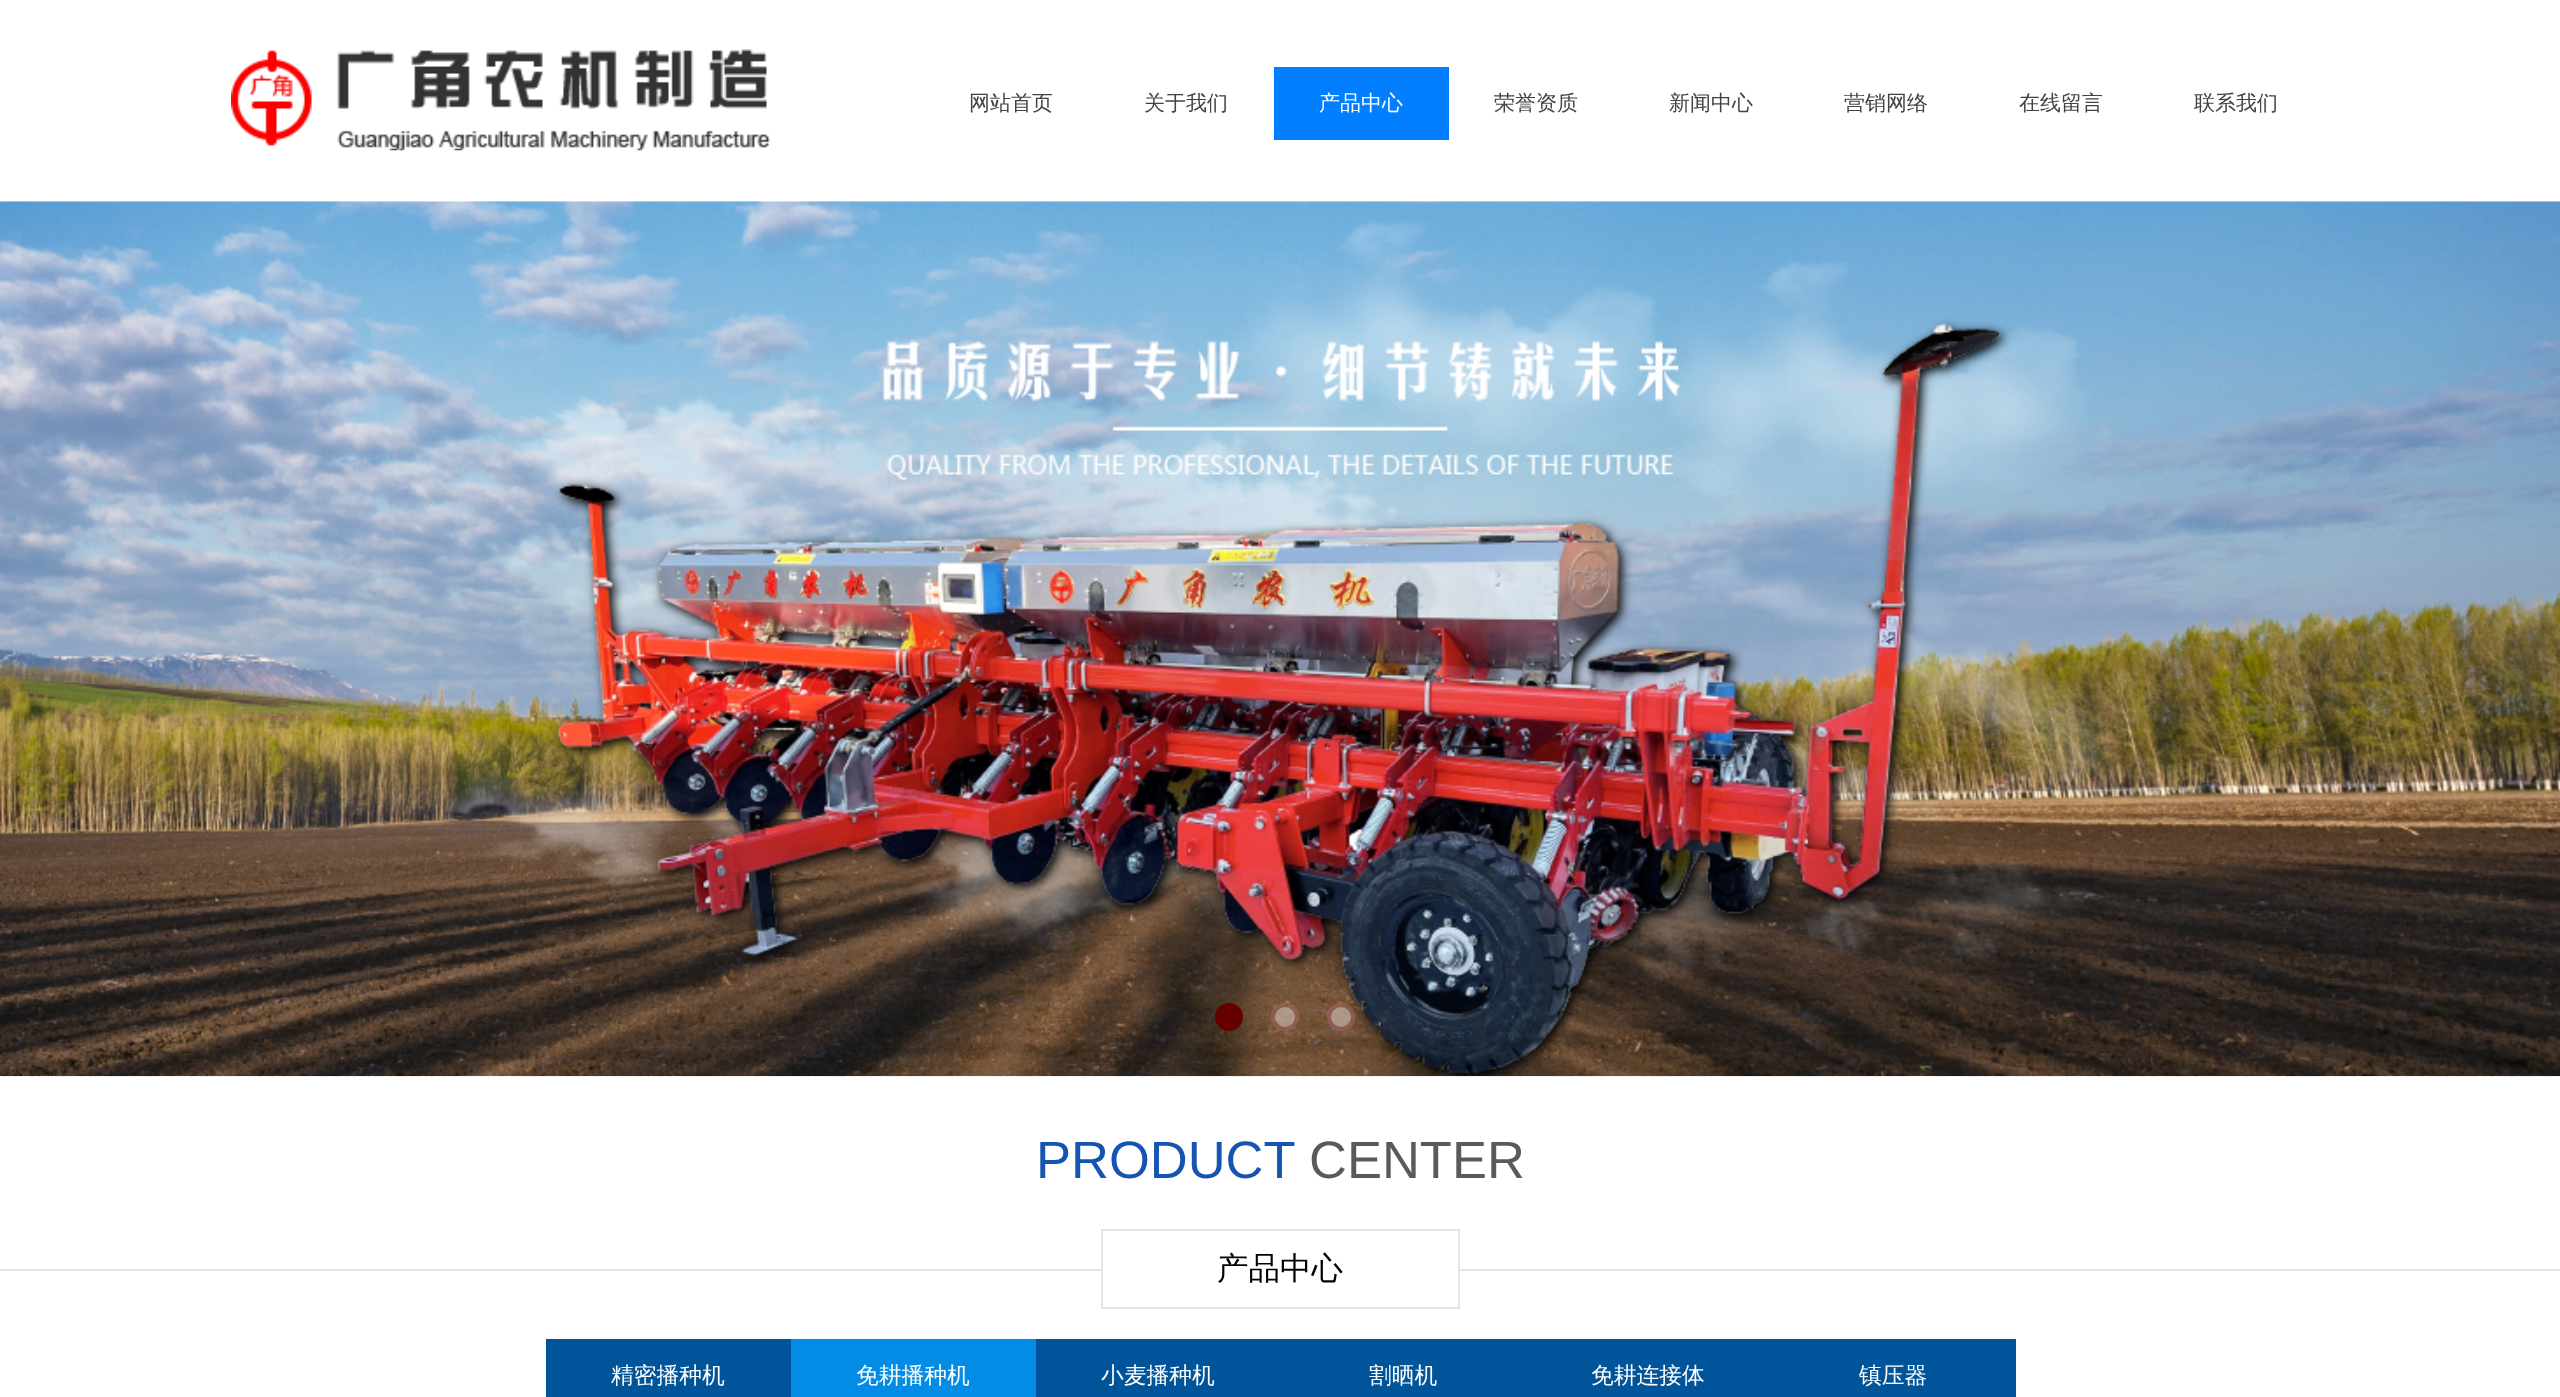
(async () => {
    const canvas = document.querySelector("canvas");
    canvas.width = 2560;
    canvas.height = 1397;
    const context = canvas.getContext("2d");
    context.miterLimit = 4;
    context.fontKerning = "normal";
    function write(s, x, y, font, color) {
        context.font = font;
        context.fillStyle = color;
        context.fillText(s, x, y);
    }
    function block(x, y, w, h, color) {
        context.fillStyle = color;
        context.fillRect(x, y, w, h);
    }
    async function photo(src, x, y, w, h) {
        const img = new Image();
        img.src = src;
        await img.decode();
        context.drawImage(img, x, y, w, h);
    }

    block(0, 0, 2560, 1397, "rgb(255, 255, 255)");
    await photo("media/1.png", 231, 49, 539, 102);
    write("网站首页", 969, 110, "500 21px WenQuanYi Zen Hei", "rgb(67, 67, 67)");
    write("关于我们", 1144, 110, "500 21px WenQuanYi Zen Hei", "rgb(67, 67, 67)");
    block(1274, 67, 175, 73, "rgb(1, 127, 255)");
    write("产品中心", 1319, 110, "500 21px WenQuanYi Zen Hei", "rgb(255, 255, 255)");
    write("荣誉资质", 1494, 110, "500 21px WenQuanYi Zen Hei", "rgb(67, 67, 67)");
    write("新闻中心", 1669, 110, "500 21px WenQuanYi Zen Hei", "rgb(67, 67, 67)");
    write("营销网络", 1844, 110, "500 21px WenQuanYi Zen Hei", "rgb(67, 67, 67)");
    write("在线留言", 2019, 110, "500 21px WenQuanYi Zen Hei", "rgb(67, 67, 67)");
    write("联系我们", 2194, 110, "500 21px WenQuanYi Zen Hei", "rgb(67, 67, 67)");
    await photo("media/2.png", 0, 201, 2560, 876);
    context.fillStyle = "rgb(102, 0, 0)";
    context.beginPath();
    context.arc(1229, 1017, 12, 0, Math.PI * 2);
    context.fill();
    context.strokeStyle = "rgb(102, 0, 0)";
    context.lineWidth = 4;
    context.stroke();
    context.fillStyle = "rgba(255, 255, 255, 0.4)";
    context.beginPath();
    context.arc(1285, 1017, 14, 0, Math.PI * 2);
    context.fill();
    context.beginPath();
    context.arc(1285, 1017, 12, 0, Math.PI * 2);
    context.strokeStyle = "rgba(102, 0, 0, 0.4)";
    context.stroke();
    context.beginPath();
    context.arc(1341, 1017, 14, 0, Math.PI * 2);
    context.fill();
    context.beginPath();
    context.arc(1341, 1017, 12, 0, Math.PI * 2);
    context.stroke();
    write("PRODUCT", 1036, 1178, "52.5px Liberation Sans", "rgb(22, 84, 178)");
    write("CENTER", 1309, 1178, "52.5px Liberation Sans", "rgb(90, 90, 90)");
    block(0, 1269, 2560, 2, "rgb(229, 229, 229)");
    block(1103, 1269, 355, 2, "rgb(255, 255, 255)");
    context.strokeStyle = "rgb(229, 229, 229)";
    context.lineWidth = 2;
    context.strokeRect(1102, 1230, 357, 78);
    write("产品中心", 1217, 1279, "500 31.5px WenQuanYi Zen Hei", "rgb(0, 0, 0)");
    block(546, 1339, 245, 58, "rgb(0, 84, 154)");
    write("精密播种机", 611, 1383, "500 22.75px WenQuanYi Zen Hei", "rgb(255, 255, 255)");
    block(791, 1339, 245, 58, "rgb(2, 140, 229)");
    write("免耕播种机", 856, 1383, "500 22.75px WenQuanYi Zen Hei", "rgb(255, 255, 255)");
    block(1036, 1339, 980, 58, "rgb(0, 84, 154)");
    write("小麦播种机", 1101, 1383, "500 22.75px WenQuanYi Zen Hei", "rgb(255, 255, 255)");
    write("割晒机", 1369, 1383, "500 22.75px WenQuanYi Zen Hei", "rgb(255, 255, 255)");
    write("免耕连接体", 1591, 1383, "500 22.75px WenQuanYi Zen Hei", "rgb(255, 255, 255)");
    write("镇压器", 1859, 1383, "500 22.75px WenQuanYi Zen Hei", "rgb(255, 255, 255)");
})();
